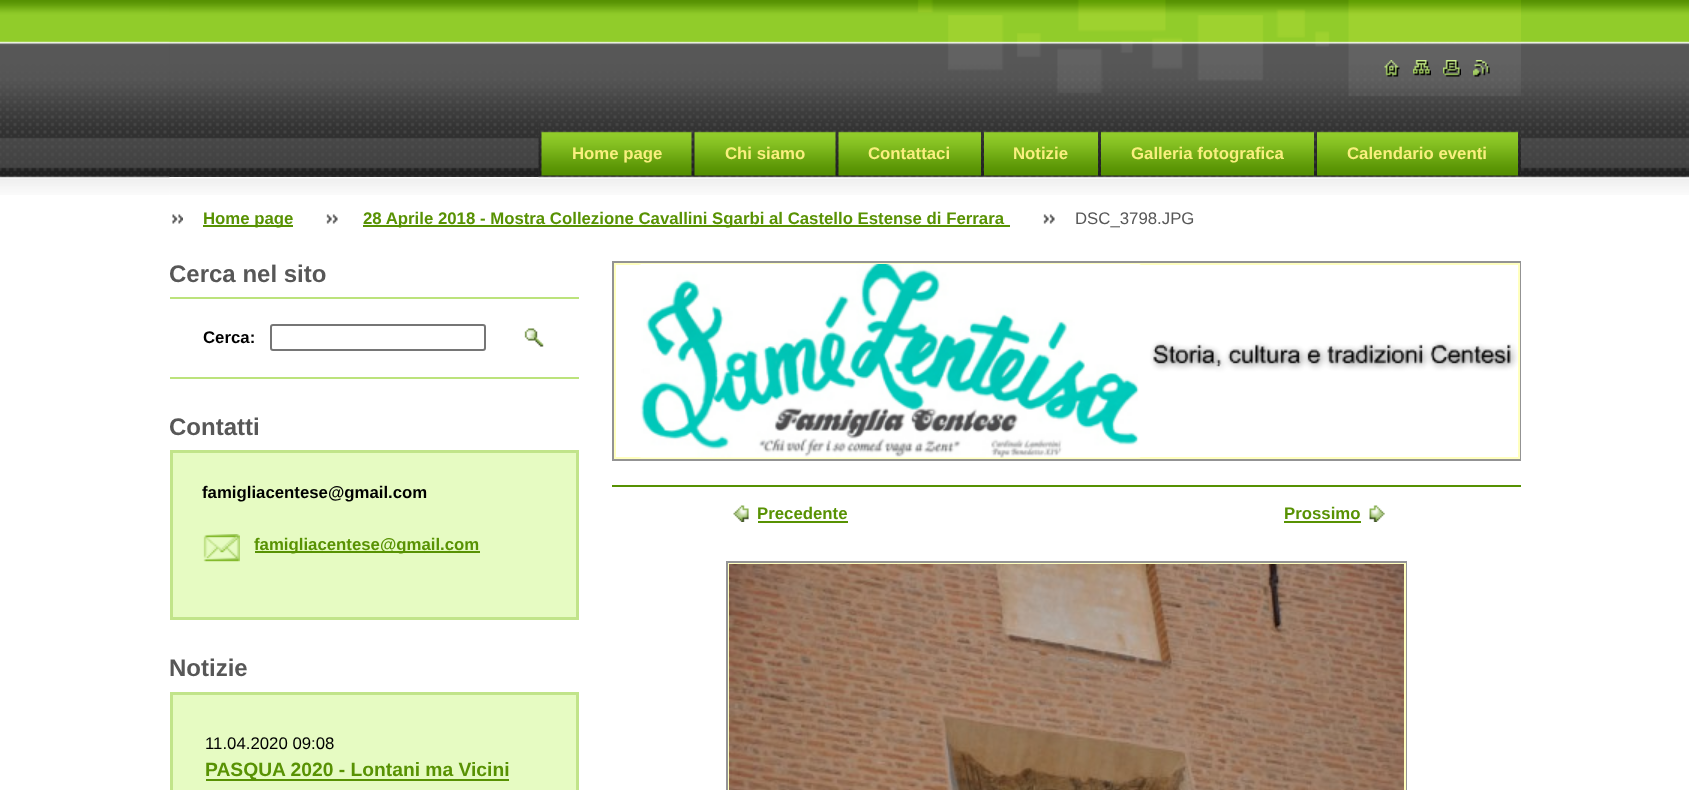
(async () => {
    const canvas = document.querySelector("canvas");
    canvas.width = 1689;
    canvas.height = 790;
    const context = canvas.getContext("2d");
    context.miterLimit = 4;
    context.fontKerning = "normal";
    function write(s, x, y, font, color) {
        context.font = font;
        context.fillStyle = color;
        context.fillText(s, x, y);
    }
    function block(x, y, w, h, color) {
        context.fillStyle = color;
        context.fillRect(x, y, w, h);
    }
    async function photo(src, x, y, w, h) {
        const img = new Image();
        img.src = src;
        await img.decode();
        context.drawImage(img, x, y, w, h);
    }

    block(0, 0, 1689, 790, "rgb(255, 255, 255)");
    await photo("media/1.png", 0, 0, 1689, 195);
    await photo("media/2.png", 169, 0, 1352, 177);
    await photo("media/3.png", 1384, 60, 16, 17);
    await photo("media/4.png", 1413, 60, 18, 16);
    await photo("media/5.png", 1443, 60, 18, 17);
    await photo("media/6.png", 1473, 60, 17, 17);
    await photo("media/14.png", 169, 177, 1352, 18);
    await photo("media/7.png", 538, 123, 983, 56);
    await photo("media/8.png", 541, 131, 151, 45);
    write("Home page", 572, 159, "bold 16.8px Liberation Sans", "rgb(249, 239, 127)");
    await photo("media/9.png", 694, 131, 142, 45);
    write("Chi siamo", 725, 159, "bold 16.8px Liberation Sans", "rgb(249, 239, 127)");
    await photo("media/10.png", 838, 131, 143, 45);
    write("Contattaci", 868, 159, "bold 16.8px Liberation Sans", "rgb(249, 239, 127)");
    await photo("media/11.png", 984, 131, 114, 45);
    write("Notizie", 1013, 159, "bold 16.8px Liberation Sans", "rgb(249, 239, 127)");
    await photo("media/12.png", 1101, 131, 213, 45);
    write("Galleria fotografica", 1131, 159, "bold 16.8px Liberation Sans", "rgb(249, 239, 127)");
    await photo("media/13.png", 1317, 131, 201, 45);
    write("Calendario eventi", 1347, 159, "bold 16.8px Liberation Sans", "rgb(249, 239, 127)");
    await photo("media/15.png", 172, 214, 11, 10);
    block(203, 225, 90, 2, "rgb(88, 146, 3)");
    write("Home page", 203, 224, "bold 16.8px Liberation Sans", "rgb(88, 146, 3)");
    await photo("media/16.png", 326, 214, 12, 10);
    block(363, 225, 647, 2, "rgb(88, 146, 3)");
    write("28 Aprile 2018 - Mostra Collezione Cavallini Sgarbi al Castello Estense di Ferrara", 363, 224, "bold 16.8px Liberation Sans", "rgb(88, 146, 3)");
    await photo("media/16.png", 1043, 214, 12, 10);
    write("DSC_3798.JPG", 1075, 224, "16.8px Liberation Sans", "rgb(87, 87, 87)");
    context.save();
    context.beginPath();
    context.rect(170, 261, 409, 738);
    context.clip();
    write("Cerca nel sito", 169, 282, "bold 24px Liberation Sans", "rgb(87, 87, 87)");
    context.restore();
    block(170, 297, 409, 2, "rgb(188, 227, 124)");
    block(170, 377, 409, 2, "rgb(188, 227, 124)");
    write("Cerca:", 203, 343, "bold 16.8px Liberation Sans", "rgb(0, 0, 0)");
    context.beginPath();
    context.roundRect(271, 325, 214, 25, 2);
    context.strokeStyle = "rgb(118, 118, 118)";
    context.lineWidth = 2;
    context.stroke();
    await photo("media/17.png", 524, 328, 20, 19);
    context.save();
    context.beginPath();
    context.rect(170, 261, 409, 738);
    context.clip();
    write("Contatti", 169, 435, "bold 24px Liberation Sans", "rgb(87, 87, 87)");
    context.restore();
    context.fillStyle = "rgb(230, 251, 194)";
    context.beginPath();
    context.rect(171.5, 451.5, 406, 167);
    context.fill();
    context.strokeStyle = "rgb(193, 228, 138)";
    context.lineWidth = 3;
    context.stroke();
    write("famigliacentese@gmail.com", 202, 498, "bold 16.8px Liberation Sans", "rgb(0, 0, 0)");
    await photo("media/18.png", 203, 534, 37, 28);
    block(255, 551, 225, 2, "rgb(88, 146, 3)");
    write("famigliacentese@gmail.com", 254, 550, "bold 16.8px Liberation Sans", "rgb(88, 146, 3)");
    write("Notizie", 169, 676, "bold 24px Liberation Sans", "rgb(87, 87, 87)");
    context.fillStyle = "rgb(230, 251, 194)";
    context.beginPath();
    context.rect(171.5, 693.5, 406, 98);
    context.fill();
    context.stroke();
    write("11.04.2020 09:08", 205, 749, "16.8px Liberation Sans", "rgb(0, 0, 0)");
    block(206, 779, 303, 2, "rgb(88, 146, 3)");
    write("PASQUA 2020 - Lontani ma Vicini", 205, 776, "bold 19.25px Liberation Sans", "rgb(88, 146, 3)");
    context.strokeStyle = "rgb(147, 147, 147)";
    context.lineWidth = 2;
    context.strokeRect(613, 262, 907, 198);
    context.strokeStyle = "rgb(255, 255, 190)";
    context.strokeRect(615, 264, 904, 194);
    await photo("media/19.png", 639, 264, 879, 194);
    block(612, 485, 909, 2, "rgb(86, 145, 2)");
    await photo("media/20.png", 733, 505, 16, 17);
    write("Precedente", 757, 519, "bold 16.8px Liberation Sans", "rgb(88, 146, 3)");
    block(758, 521, 90, 2, "rgb(88, 146, 3)");
    write("Prossimo", 1284, 519, "bold 16.8px Liberation Sans", "rgb(88, 146, 3)");
    block(1284, 521, 77, 2, "rgb(88, 146, 3)");
    await photo("media/21.png", 1369, 505, 16, 17);
    context.strokeStyle = "rgb(148, 148, 150)";
    context.strokeRect(727, 562, 679, 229);
    context.strokeStyle = "rgb(255, 255, 190)";
    context.strokeRect(729, 564, 676, 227);
    await photo("media/22.png", 729, 564, 675, 226);
})();
